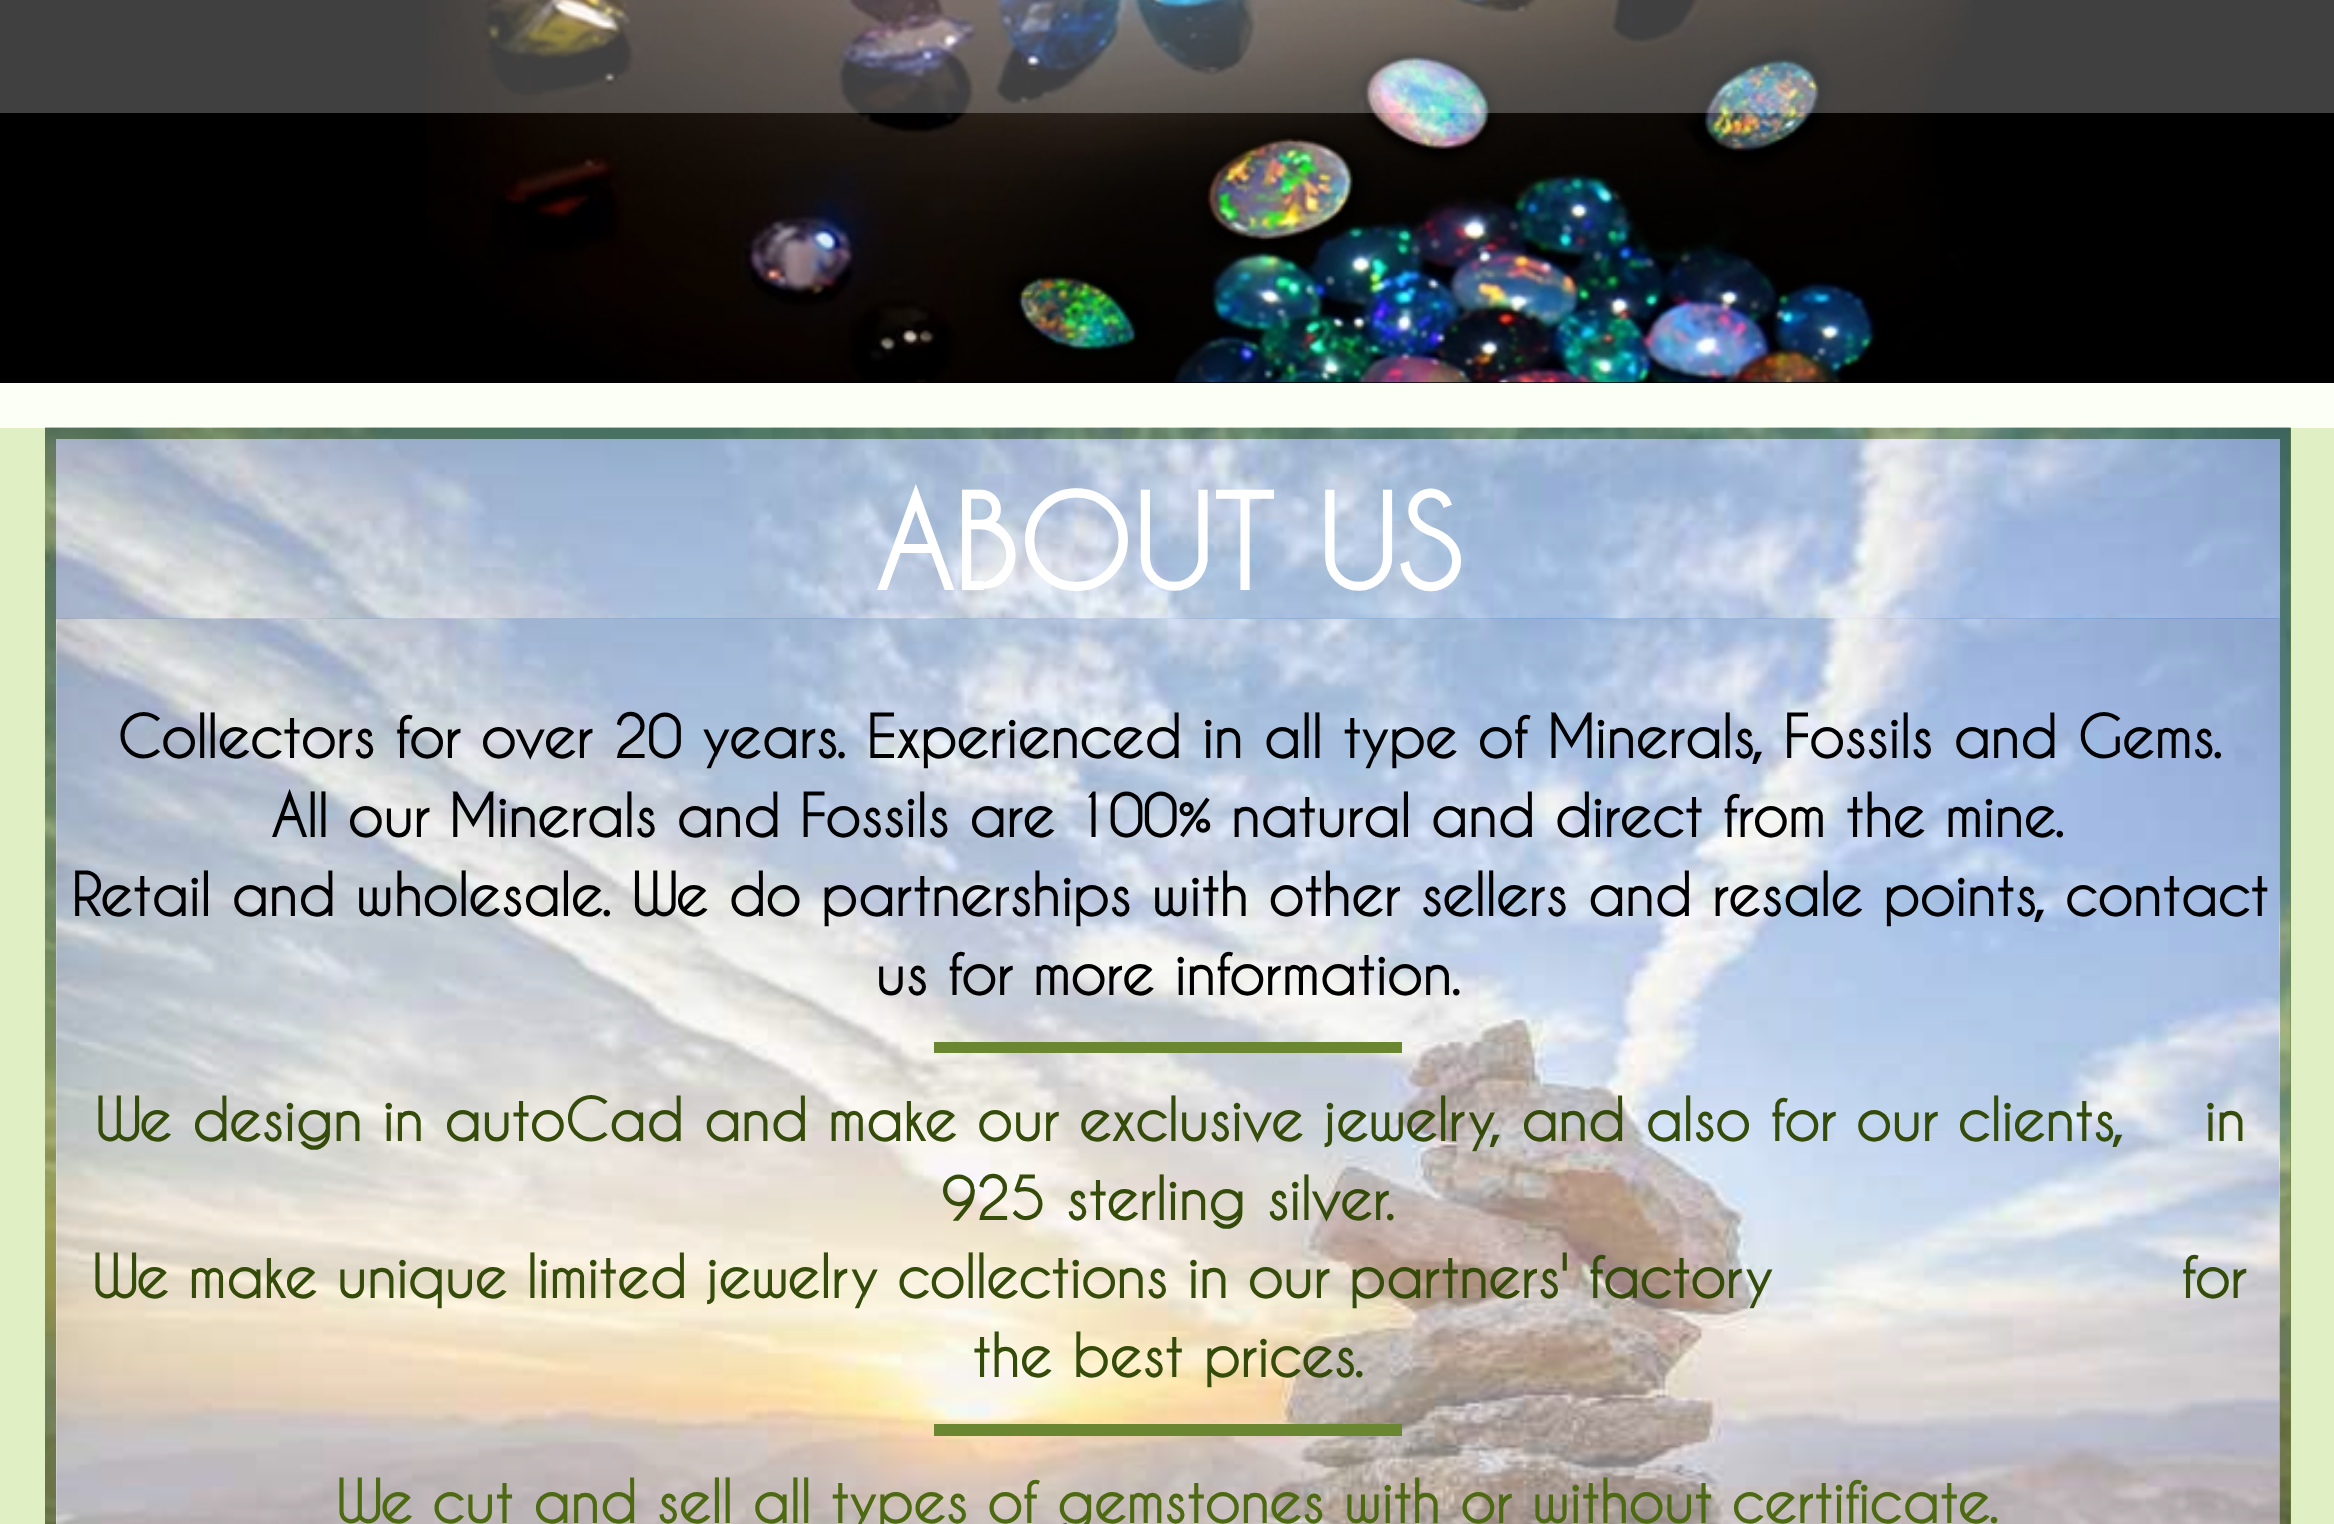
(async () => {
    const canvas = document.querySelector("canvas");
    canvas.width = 2334;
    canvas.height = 1524;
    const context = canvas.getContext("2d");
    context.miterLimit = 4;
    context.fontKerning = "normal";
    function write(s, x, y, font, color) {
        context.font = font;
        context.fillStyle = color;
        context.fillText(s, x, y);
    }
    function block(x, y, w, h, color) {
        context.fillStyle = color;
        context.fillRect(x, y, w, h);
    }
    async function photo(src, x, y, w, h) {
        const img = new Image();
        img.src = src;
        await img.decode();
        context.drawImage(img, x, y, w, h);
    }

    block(0, 0, 2334, 1524, "rgb(251, 255, 245)");
    block(0, 0, 2334, 383, "rgb(0, 0, 0)");
    await photo("media/1.png", 426, 0, 1546, 383);
    block(0, 0, 2334, 113, "rgba(255, 255, 255, 0.25)");
    block(0, 428, 2334, 1096, "rgb(224, 240, 196)");
    context.fillStyle = "rgb(255, 255, 255)";
    context.beginPath();
    context.rect(50.5, 433.5, 2235, 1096);
    context.fill();
    context.strokeStyle = "rgb(107, 136, 45)";
    context.lineWidth = 11;
    context.stroke();
    await photo("media/2.png", 45, 427, 2246, 1097);
    write("ABOUT US", 875, 590, "bold 123.75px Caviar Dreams", "rgb(255, 255, 255)");
    block(56, 619, 2223, 905, "rgb(255, 255, 255)");
    await photo("media/3.png", 56, 618, 2224, 906);
    context.wordSpacing = "0.9px";
    write("Collectors for over 20 years. Experienced in all type of Minerals, Fossils and Gems.", 117, 758, "bold 56.25px Caviar Dreams", "rgb(0, 0, 0)");
    context.wordSpacing = "0.25px";
    write("All our Minerals and Fossils are 100% natural and direct from the mine.", 271, 837, "bold 56.25px Caviar Dreams", "rgb(0, 0, 0)");
    context.wordSpacing = "0.75px";
    write("Retail and wholesale. We do partnerships with other sellers and resale points, contact", 71, 916, "bold 56.25px Caviar Dreams", "rgb(0, 0, 0)");
    context.wordSpacing = "0.5px";
    write("us for more information.", 875, 995, "bold 56.25px Caviar Dreams", "rgb(0, 0, 0)");
    block(934, 1042, 468, 11, "rgb(106, 134, 48)");
    context.wordSpacing = "0.75px";
    write("We design in autoCad and make our exclusive jewelry, and also for our clients,    in", 95, 1141, "bold 56.25px Caviar Dreams", "rgb(53, 75, 9)");
    context.wordSpacing = "2px";
    write("925 sterling silver.", 941, 1220, "bold 56.25px Caviar Dreams", "rgb(53, 75, 9)");
    context.wordSpacing = "0px";
    write("We make unique limited jewelry collections in our partners' factory                     for", 92, 1298, "bold 56.25px Caviar Dreams", "rgb(53, 75, 9)");
    context.wordSpacing = "1px";
    write("the best prices.", 972, 1377, "bold 56.25px Caviar Dreams", "rgb(53, 75, 9)");
    block(934, 1424, 468, 12, "rgb(106, 134, 48)");
    context.wordSpacing = "0.25px";
    write("We cut and sell all types of gemstones with or without certificate.", 336, 1523, "bold 56.25px Caviar Dreams", "rgb(77, 106, 18)");
})();
